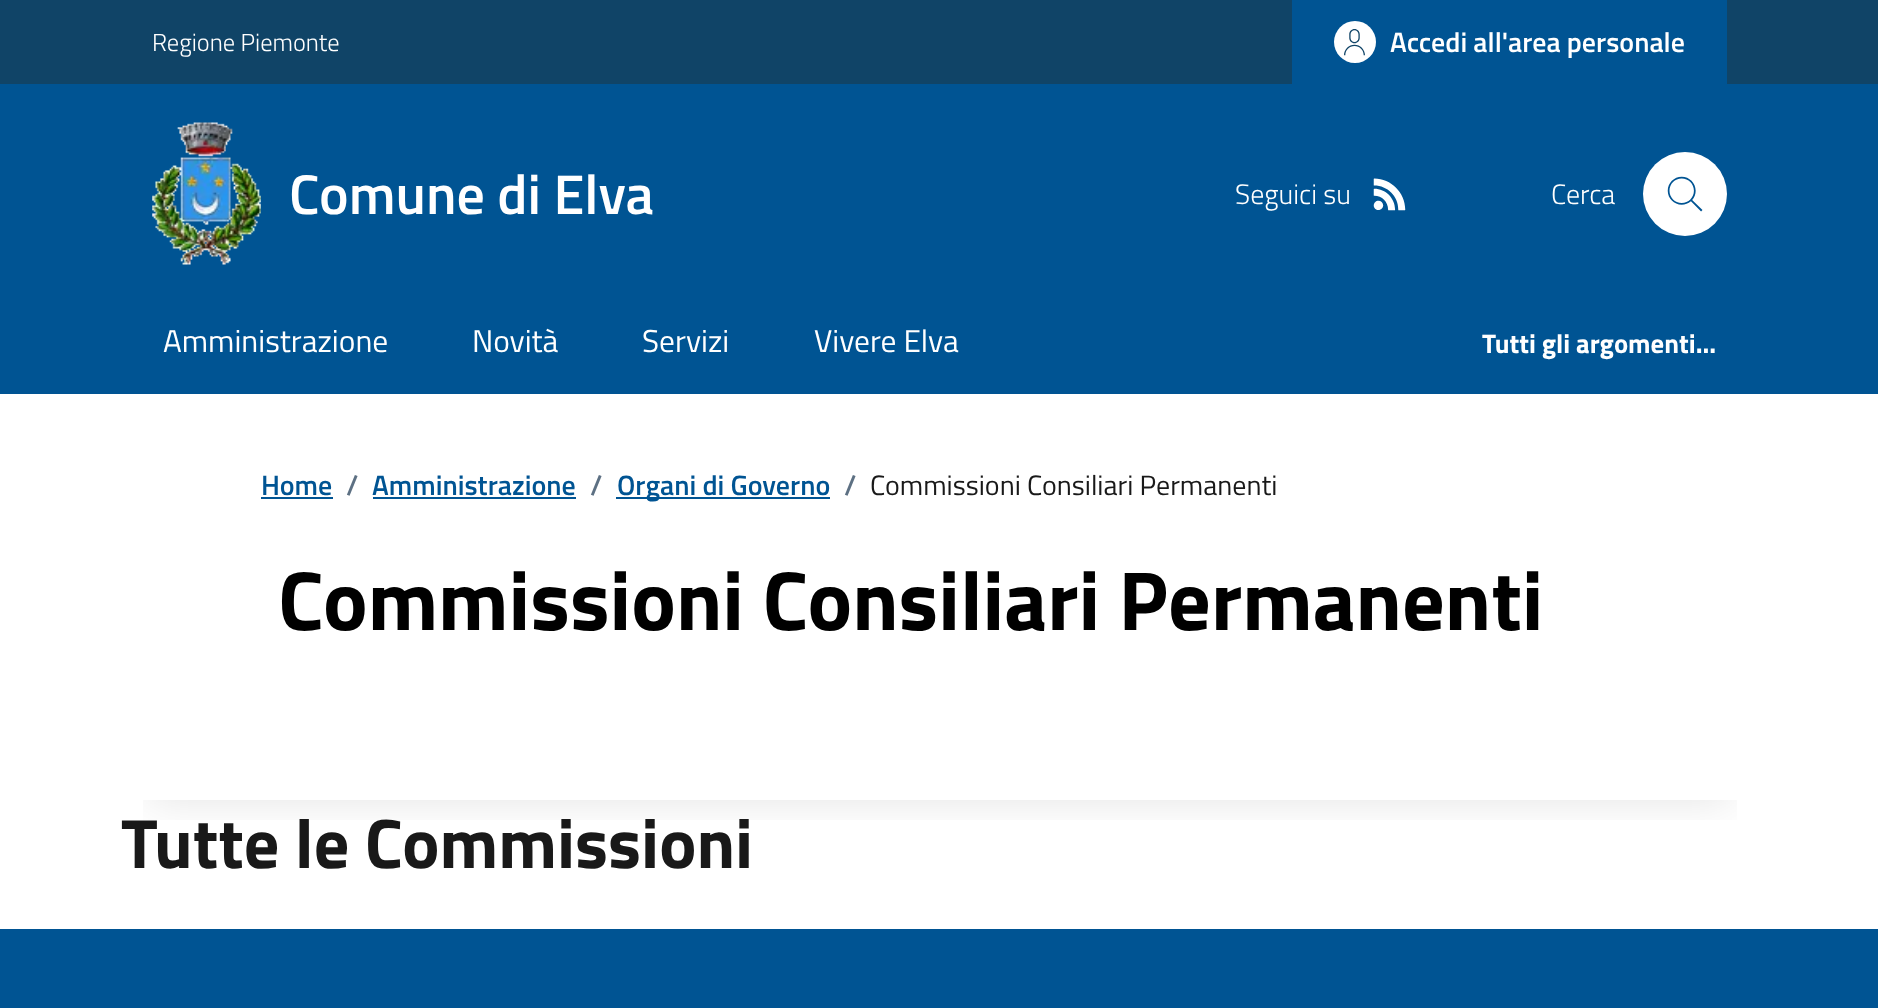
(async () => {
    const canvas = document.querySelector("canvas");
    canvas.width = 1878;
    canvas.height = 1008;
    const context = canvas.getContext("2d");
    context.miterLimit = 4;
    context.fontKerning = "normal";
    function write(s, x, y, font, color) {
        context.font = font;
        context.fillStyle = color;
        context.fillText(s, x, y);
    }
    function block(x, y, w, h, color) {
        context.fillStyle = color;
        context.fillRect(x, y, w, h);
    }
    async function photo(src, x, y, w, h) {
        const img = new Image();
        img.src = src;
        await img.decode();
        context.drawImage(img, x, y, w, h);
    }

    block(0, 0, 1878, 1008, "rgb(255, 255, 255)");
    block(0, 0, 1878, 84, "rgb(16, 68, 103)");
    write("Regione Piemonte", 152, 51, "300 24.5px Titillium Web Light", "rgb(255, 255, 255)");
    block(1292, 0, 435, 84, "rgb(0, 84, 147)");
    context.fillStyle = "rgb(255, 255, 255)";
    context.beginPath();
    context.arc(1355, 42, 21, 0, Math.PI * 2);
    context.fill();
    await photo("media/1.png", 1344, 29, 21, 27);
    write("Accedi all'area personale", 1390, 52, "600 28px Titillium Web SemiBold", "rgb(255, 255, 255)");
    block(0, 84, 1878, 310, "rgb(0, 84, 147)");
    await photo("media/2.png", 152, 122, 109, 143);
    write("Comune di Elva", 289, 214, "600 56px Titillium Web SemiBold", "rgb(255, 255, 255)");
    write("Seguici su", 1235, 204, "300 28px Titillium Web Light", "rgb(255, 255, 255)");
    await photo("media/3.png", 1373, 178, 33, 33);
    write("Cerca", 1551, 204, "300 28px Titillium Web Light", "rgb(255, 255, 255)");
    context.beginPath();
    context.arc(1685, 194, 42, 0, Math.PI * 2);
    context.fill();
    await photo("media/4.png", 1667, 176, 36, 36);
    write("Amministrazione", 163, 352, "31.5px Titillium Web", "rgb(255, 255, 255)");
    write("Novità", 472, 352, "31.5px Titillium Web", "rgb(255, 255, 255)");
    write("Servizi", 642, 352, "31.5px Titillium Web", "rgb(255, 255, 255)");
    write("Vivere Elva", 814, 352, "31.5px Titillium Web", "rgb(255, 255, 255)");
    write("Tutti gli argomenti...", 1482, 353, "bold 26.75px Titillium Web", "rgb(255, 255, 255)");
    write("Home", 261, 495, "600 28px Titillium Web SemiBold", "rgb(0, 84, 147)");
    block(261, 497, 72, 2, "rgb(0, 84, 147)");
    write("/", 346, 495, "600 28px Titillium Web SemiBold", "rgb(93, 112, 131)");
    write("Amministrazione", 372, 495, "600 28px Titillium Web SemiBold", "rgb(0, 84, 147)");
    block(373, 497, 203, 2, "rgb(0, 84, 147)");
    write("/", 590, 495, "600 28px Titillium Web SemiBold", "rgb(93, 112, 131)");
    block(616, 497, 214, 2, "rgb(0, 84, 147)");
    write("Organi di Governo", 617, 495, "600 28px Titillium Web SemiBold", "rgb(0, 84, 147)");
    write("/", 844, 495, "600 28px Titillium Web SemiBold", "rgb(93, 112, 131)");
    write("Commissioni Consiliari Permanenti", 870, 495, "28px Titillium Web", "rgb(25, 25, 25)");
    context.save();
    context.beginPath();
    context.rect(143, 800, 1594, 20);
    context.clip();
    context.fillStyle = "rgba(0, 0, 0, 0.1)";
    context.filter = "blur(21px)";
    context.beginPath();
    context.rect(149, 606, 1582, 196);
    context.fill();
    context.filter = "none";
    context.restore();
    block(278, 799, 1323, 1, "rgb(255, 255, 255)");
    write("Commissioni Consiliari Permanenti", 278, 630, "bold 84px Titillium Web", "rgb(0, 0, 0)");
    write("Tutte le Commissioni", 121, 868, "bold 70px Titillium Web", "rgb(25, 25, 25)");
    block(0, 929, 1878, 79, "rgb(0, 84, 147)");
})();
